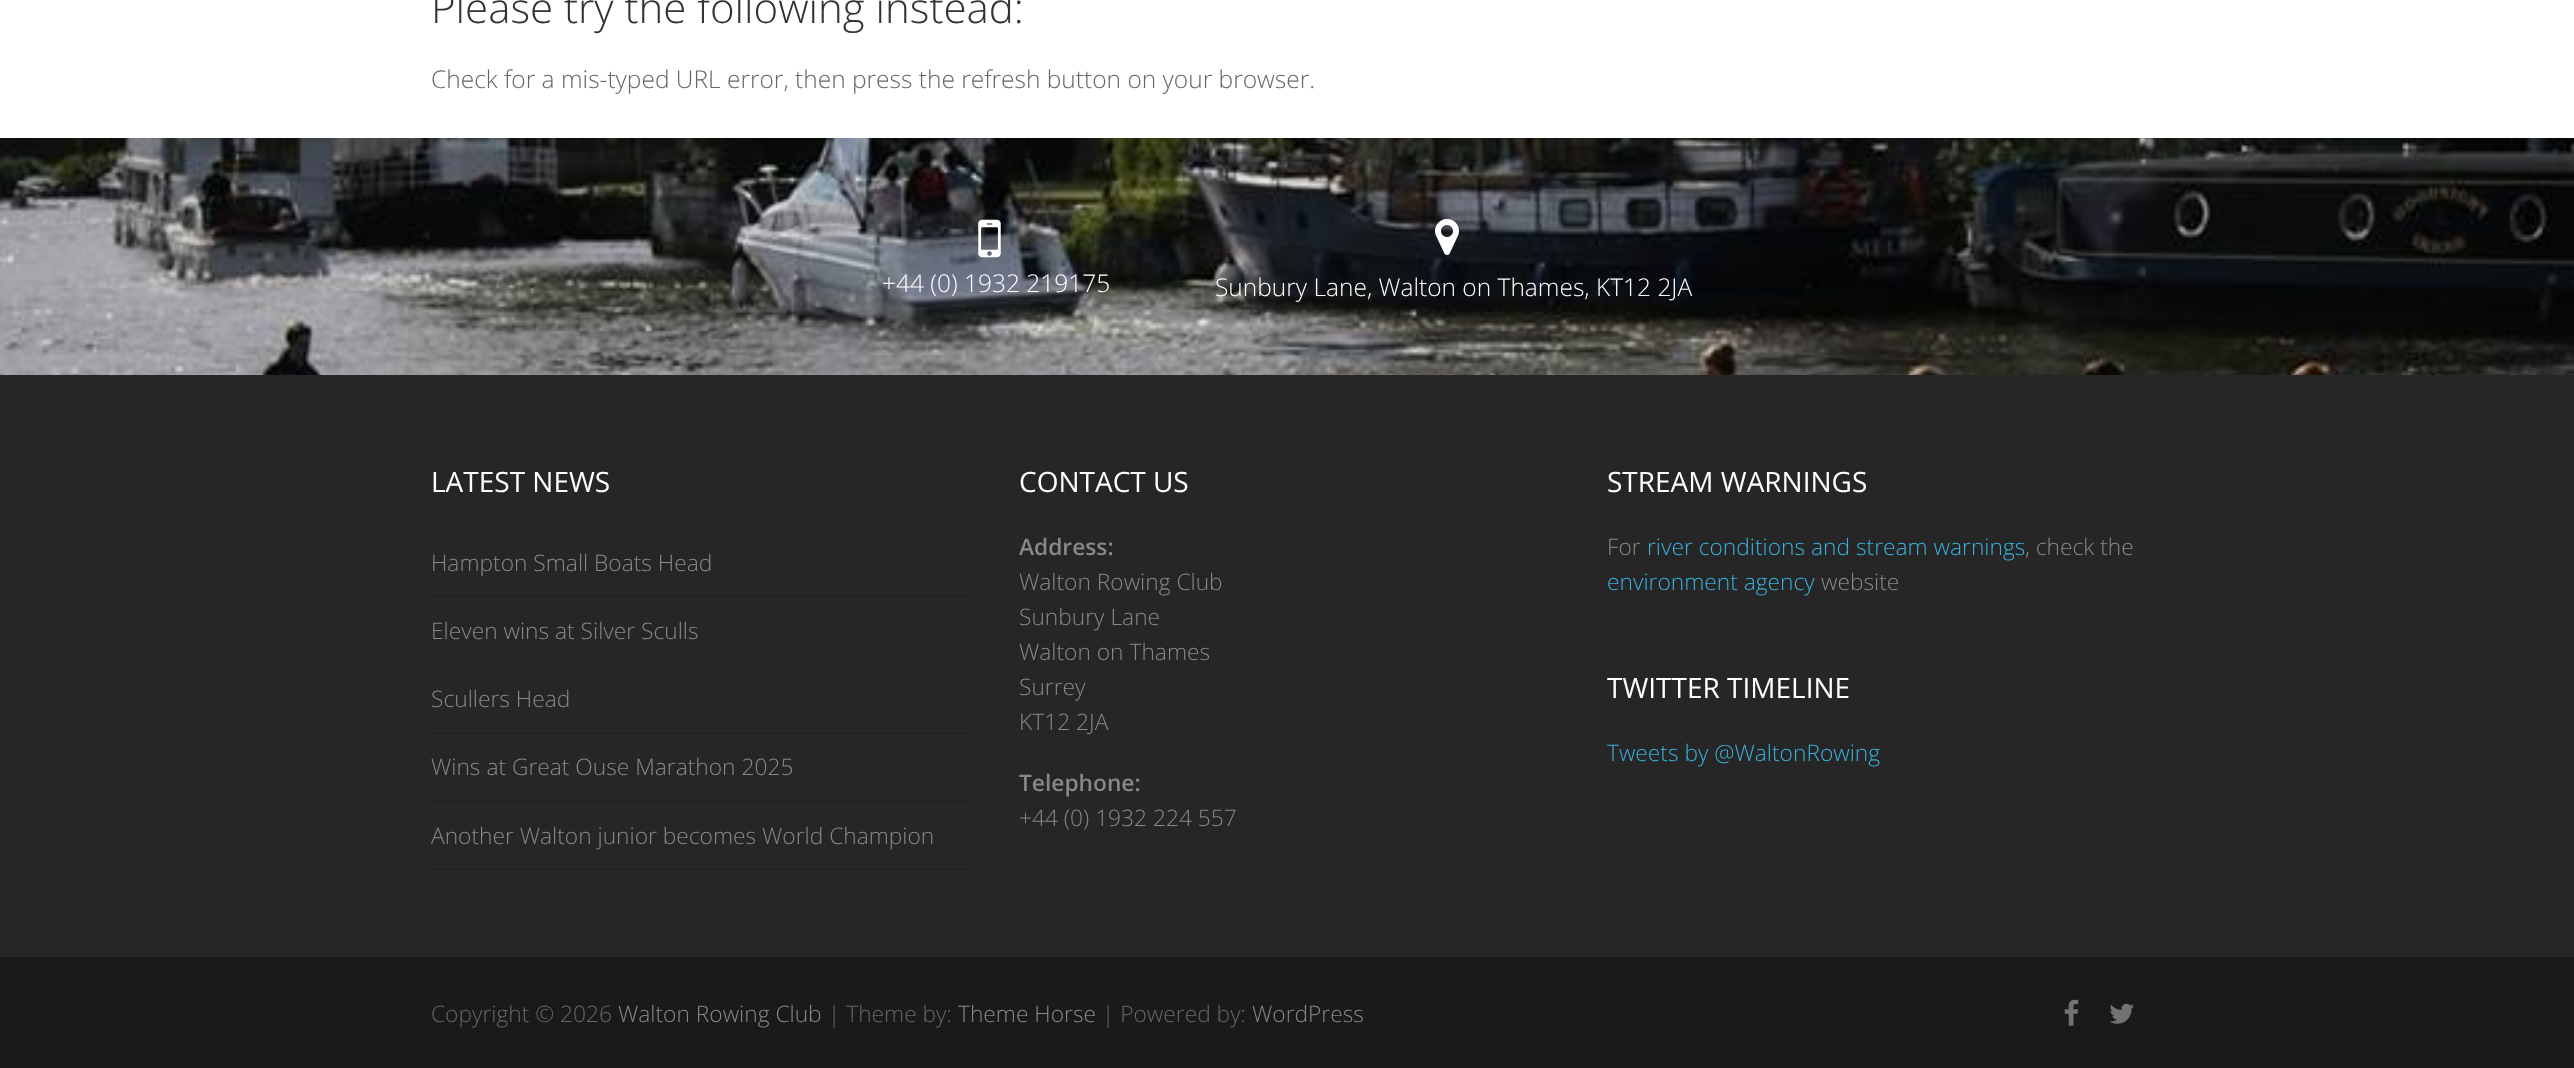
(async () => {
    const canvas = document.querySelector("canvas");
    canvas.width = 2574;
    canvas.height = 1068;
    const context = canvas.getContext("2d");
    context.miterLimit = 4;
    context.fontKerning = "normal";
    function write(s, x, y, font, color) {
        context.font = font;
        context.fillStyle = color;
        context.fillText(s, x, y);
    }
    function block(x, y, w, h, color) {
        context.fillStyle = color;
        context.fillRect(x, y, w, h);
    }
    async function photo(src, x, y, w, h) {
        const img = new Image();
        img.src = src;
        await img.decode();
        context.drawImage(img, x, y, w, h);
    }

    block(0, 0, 2574, 1068, "rgb(255, 255, 255)");
    write("Please try the following instead:", 431, 23, "300 42px Open Sans", "rgb(51, 51, 51)");
    write("Check for a mis-typed URL error, then press the refresh button on your browser.", 431, 88, "300 24.5px Open Sans", "rgb(102, 102, 102)");
    await photo("media/1.png", 0, 138, 2574, 237);
    await photo("media/2.png", 978, 219, 23, 39);
    write("+44 (0) 1932 219175", 882, 292, "300 24.5px Open Sans", "rgb(255, 255, 255)");
    await photo("media/3.png", 1435, 219, 24, 36);
    write("Sunbury Lane, Walton on Thames, KT12 2JA", 1215, 296, "300 24.5px Open Sans", "rgb(255, 255, 255)");
    block(0, 375, 2574, 582, "rgb(38, 38, 38)");
    write("LATEST NEWS", 431, 492, "28px Open Sans", "rgb(255, 255, 255)");
    block(432, 595, 536, 2, "rgb(34, 34, 34)");
    write("Hampton Small Boats Head", 431, 571, "300 22.75px Open Sans", "rgb(136, 136, 136)");
    block(432, 663, 536, 2, "rgb(34, 34, 34)");
    write("Eleven wins at Silver Sculls", 431, 639, "300 22.75px Open Sans", "rgb(136, 136, 136)");
    block(432, 732, 536, 2, "rgb(34, 34, 34)");
    write("Scullers Head", 431, 707, "300 22.75px Open Sans", "rgb(136, 136, 136)");
    block(432, 800, 536, 2, "rgb(34, 34, 34)");
    write("Wins at Great Ouse Marathon 2025", 431, 775, "300 22.75px Open Sans", "rgb(136, 136, 136)");
    block(432, 868, 536, 2, "rgb(34, 34, 34)");
    write("Another Walton junior becomes World Champion", 431, 844, "300 22.75px Open Sans", "rgb(136, 136, 136)");
    write("CONTACT US", 1019, 492, "28px Open Sans", "rgb(255, 255, 255)");
    write("Address:", 1019, 555, "600 22.75px Open Sans", "rgb(136, 136, 136)");
    write("Walton Rowing Club", 1019, 590, "300 22.75px Open Sans", "rgb(136, 136, 136)");
    write("Sunbury Lane", 1019, 625, "300 22.75px Open Sans", "rgb(136, 136, 136)");
    write("Walton on Thames", 1019, 660, "300 22.75px Open Sans", "rgb(136, 136, 136)");
    write("Surrey", 1019, 695, "300 22.75px Open Sans", "rgb(136, 136, 136)");
    write("KT12 2JA", 1019, 730, "300 22.75px Open Sans", "rgb(136, 136, 136)");
    write("Telephone:", 1019, 791, "600 22.75px Open Sans", "rgb(136, 136, 136)");
    write("+44 (0) 1932 224 557", 1019, 826, "300 22.75px Open Sans", "rgb(136, 136, 136)");
    write("STREAM WARNINGS", 1607, 492, "28px Open Sans", "rgb(255, 255, 255)");
    write("For", 1607, 555, "300 22.75px Open Sans", "rgb(136, 136, 136)");
    write("river conditions and stream warnings", 1647, 555, "300 22.75px Open Sans", "rgb(58, 176, 219)");
    write(", check the", 2025, 555, "300 22.75px Open Sans", "rgb(136, 136, 136)");
    write("environment agency", 1607, 590, "300 22.75px Open Sans", "rgb(58, 176, 219)");
    write("website", 1821, 590, "300 22.75px Open Sans", "rgb(136, 136, 136)");
    write("TWITTER TIMELINE", 1607, 698, "28px Open Sans", "rgb(255, 255, 255)");
    write("Tweets by @WaltonRowing", 1607, 761, "300 22.75px Open Sans", "rgb(58, 176, 219)");
    block(0, 957, 2574, 111, "rgb(26, 26, 26)");
    write("Copyright © 2026", 431, 1022, "300 22.75px Open Sans", "rgb(102, 102, 102)");
    write("Walton Rowing Club", 618, 1022, "300 22.75px Open Sans", "rgb(136, 136, 136)");
    write("| Theme by:", 828, 1022, "300 22.75px Open Sans", "rgb(102, 102, 102)");
    write("Theme Horse", 958, 1022, "300 22.75px Open Sans", "rgb(136, 136, 136)");
    write("| Powered by:", 1102, 1022, "300 22.75px Open Sans", "rgb(102, 102, 102)");
    write("WordPress", 1252, 1022, "300 22.75px Open Sans", "rgb(136, 136, 136)");
    await photo("media/4.png", 2064, 999, 15, 27);
    await photo("media/5.png", 2109, 1003, 25, 21);
})();
